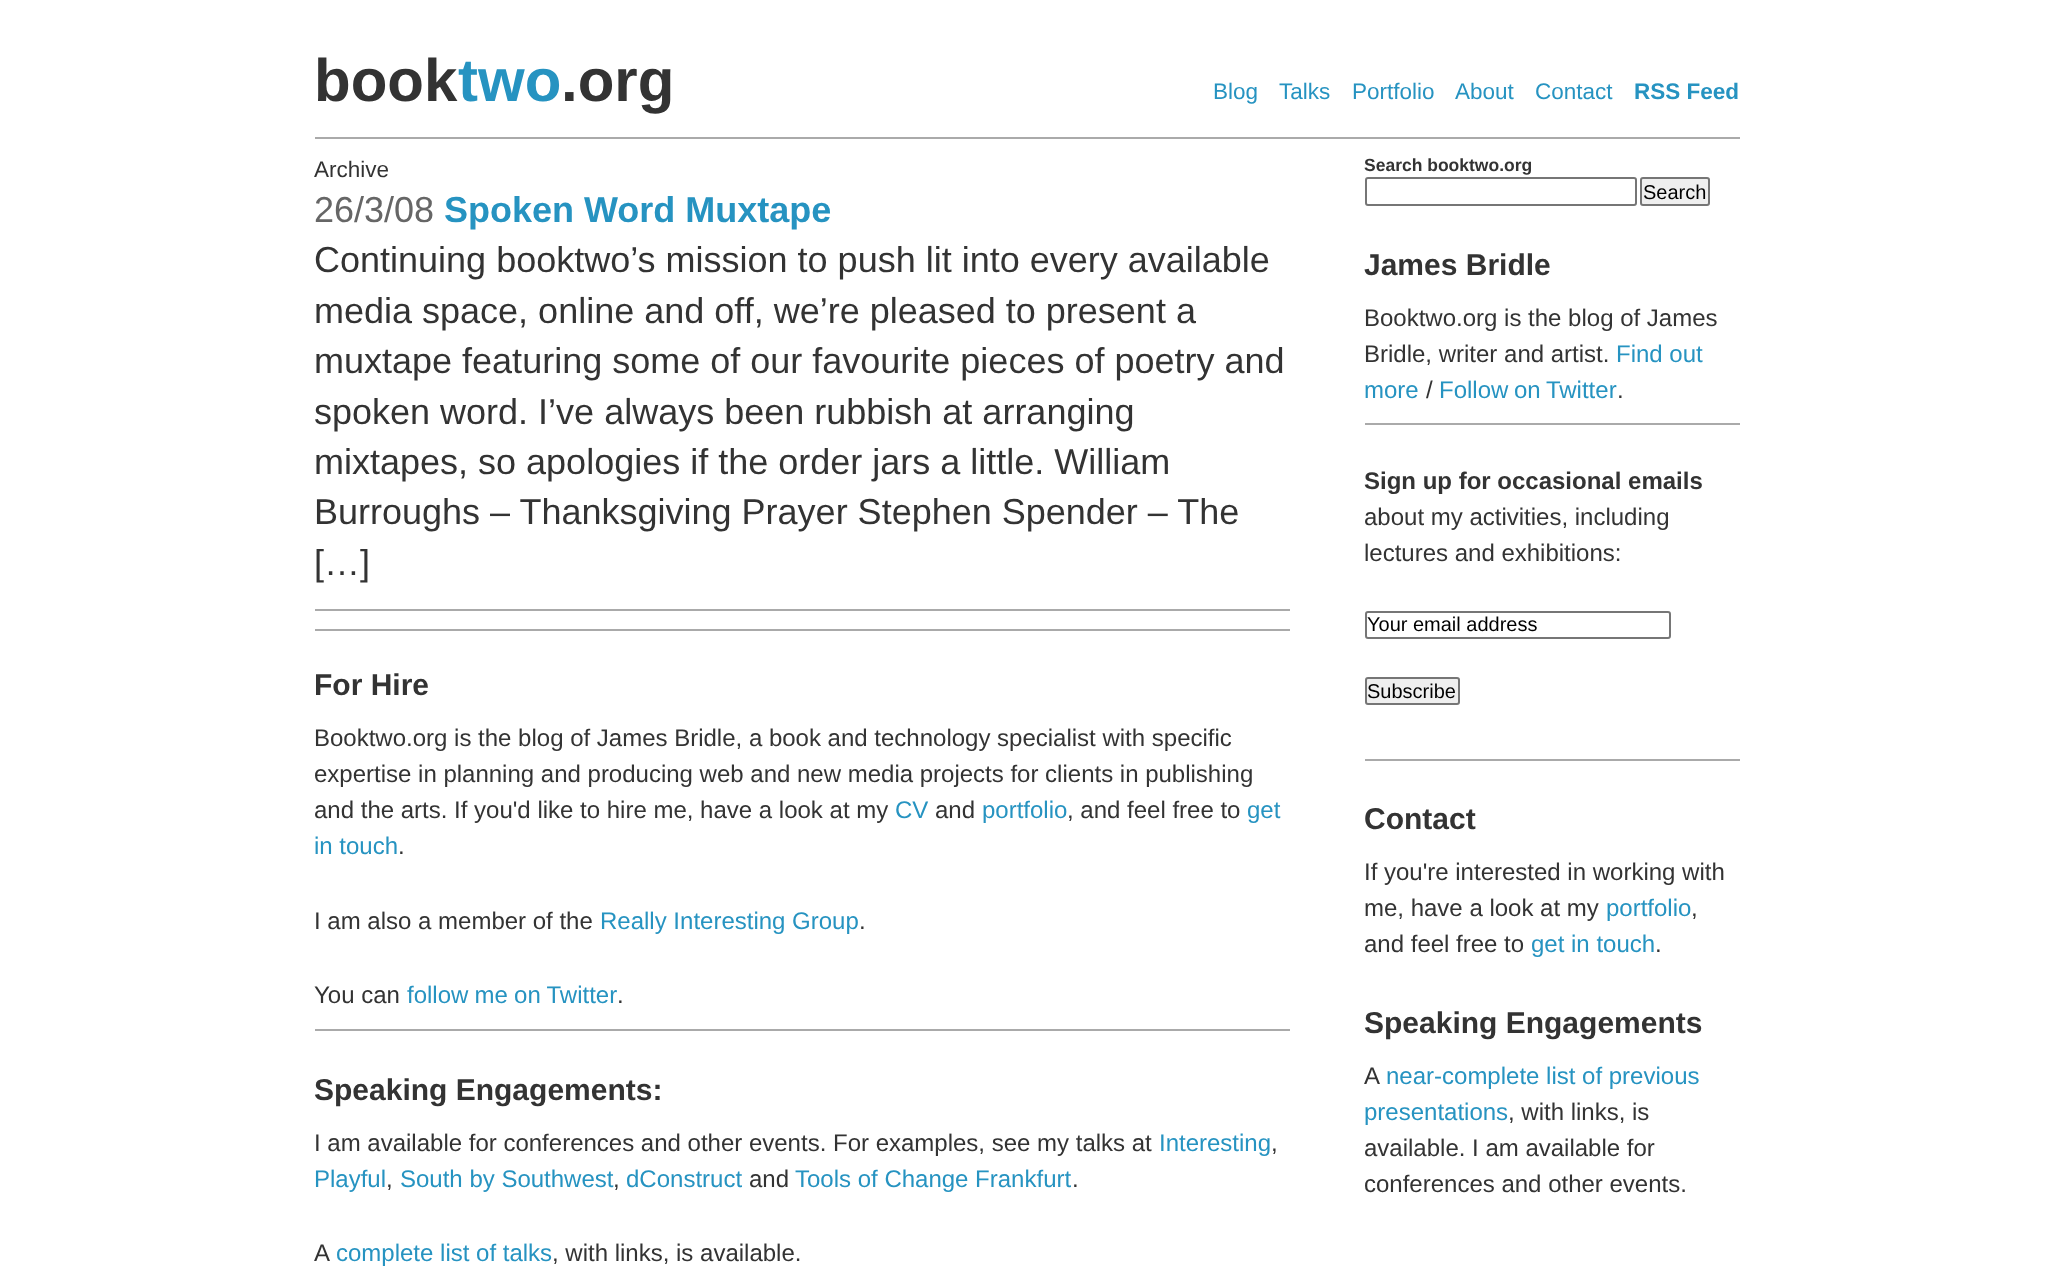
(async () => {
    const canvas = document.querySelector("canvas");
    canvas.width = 2053;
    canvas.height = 1281;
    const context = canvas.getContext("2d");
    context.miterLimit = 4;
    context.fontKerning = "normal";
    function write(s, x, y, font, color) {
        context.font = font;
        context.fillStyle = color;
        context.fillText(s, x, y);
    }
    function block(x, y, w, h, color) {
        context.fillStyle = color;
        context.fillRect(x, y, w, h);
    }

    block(0, 0, 2053, 1281, "rgb(255, 255, 255)");
    block(315, 137, 1425, 2, "rgb(170, 170, 170)");
    write("book", 314, 101, "bold 60px Liberation Sans", "rgb(51, 51, 51)");
    write("two", 458, 101, "bold 60px Liberation Sans", "rgb(38, 147, 193)");
    write(".org", 561, 101, "bold 60px Liberation Sans", "rgb(51, 51, 51)");
    write("Blog", 1213, 99, "22.5px Liberation Sans", "rgb(38, 147, 193)");
    write("Talks", 1279, 99, "22.5px Liberation Sans", "rgb(38, 147, 193)");
    write("Portfolio", 1352, 99, "22.5px Liberation Sans", "rgb(38, 147, 193)");
    write("About", 1455, 99, "22.5px Liberation Sans", "rgb(38, 147, 193)");
    write("Contact", 1535, 99, "22.5px Liberation Sans", "rgb(38, 147, 193)");
    write("RSS Feed", 1634, 99, "bold 22.5px Liberation Sans", "rgb(38, 147, 193)");
    write("Archive", 314, 177, "22.5px Liberation Sans", "rgb(51, 51, 51)");
    write("26/3/08", 314, 222, "36px Liberation Sans", "rgb(102, 102, 102)");
    write("Spoken Word Muxtape", 444, 222, "bold 36px Liberation Sans", "rgb(38, 147, 193)");
    write("Continuing booktwo’s mission to push lit into every available", 314, 272, "36px Liberation Sans", "rgb(51, 51, 51)");
    write("media space, online and off, we’re pleased to present a", 314, 323, "36px Liberation Sans", "rgb(51, 51, 51)");
    write("muxtape featuring some of our favourite pieces of poetry and", 314, 373, "36px Liberation Sans", "rgb(51, 51, 51)");
    write("spoken word. I’ve always been rubbish at arranging", 314, 424, "36px Liberation Sans", "rgb(51, 51, 51)");
    write("mixtapes, so apologies if the order jars a little. William", 314, 474, "36px Liberation Sans", "rgb(51, 51, 51)");
    write("Burroughs – Thanksgiving Prayer Stephen Spender – The", 314, 524, "36px Liberation Sans", "rgb(51, 51, 51)");
    write("[…]", 314, 575, "36px Liberation Sans", "rgb(51, 51, 51)");
    block(315, 609, 975, 2, "rgb(170, 170, 170)");
    block(315, 629, 975, 2, "rgb(170, 170, 170)");
    write("For Hire", 314, 695, "bold 30px Liberation Sans", "rgb(51, 51, 51)");
    write("Booktwo.org is the blog of James Bridle, a book and technology specialist with specific", 314, 746, "24px Liberation Sans", "rgb(51, 51, 51)");
    write("expertise in planning and producing web and new media projects for clients in publishing", 314, 782, "24px Liberation Sans", "rgb(51, 51, 51)");
    write("and the arts. If you'd like to hire me, have a look at my", 314, 818, "24px Liberation Sans", "rgb(51, 51, 51)");
    write("CV", 895, 818, "24px Liberation Sans", "rgb(38, 147, 193)");
    write("and", 935, 818, "24px Liberation Sans", "rgb(51, 51, 51)");
    write("portfolio", 982, 818, "24px Liberation Sans", "rgb(38, 147, 193)");
    write(", and feel free to", 1067, 818, "24px Liberation Sans", "rgb(51, 51, 51)");
    write("get", 1247, 818, "24px Liberation Sans", "rgb(38, 147, 193)");
    write("in touch", 314, 854, "24px Liberation Sans", "rgb(38, 147, 193)");
    write(".", 398, 854, "24px Liberation Sans", "rgb(51, 51, 51)");
    write("I am also a member of the", 314, 929, "24px Liberation Sans", "rgb(51, 51, 51)");
    write("Really Interesting Group", 600, 929, "24px Liberation Sans", "rgb(38, 147, 193)");
    write(".", 859, 929, "24px Liberation Sans", "rgb(51, 51, 51)");
    block(315, 1029, 975, 2, "rgb(170, 170, 170)");
    write("You can", 314, 1003, "24px Liberation Sans", "rgb(51, 51, 51)");
    context.wordSpacing = "-0.5px";
    write("follow me on Twitter", 407, 1003, "24px Liberation Sans", "rgb(38, 147, 193)");
    context.wordSpacing = "0px";
    write(".", 617, 1003, "24px Liberation Sans", "rgb(51, 51, 51)");
    write("Speaking Engagements:", 314, 1100, "bold 30px Liberation Sans", "rgb(51, 51, 51)");
    write("I am available for conferences and other events. For examples, see my talks at", 314, 1151, "24px Liberation Sans", "rgb(51, 51, 51)");
    write("Interesting", 1159, 1151, "24px Liberation Sans", "rgb(38, 147, 193)");
    write(",", 1271, 1151, "24px Liberation Sans", "rgb(51, 51, 51)");
    write("Playful", 314, 1187, "24px Liberation Sans", "rgb(38, 147, 193)");
    write(",", 386, 1187, "24px Liberation Sans", "rgb(51, 51, 51)");
    write("South by Southwest", 400, 1187, "24px Liberation Sans", "rgb(38, 147, 193)");
    write(",", 613, 1187, "24px Liberation Sans", "rgb(51, 51, 51)");
    write("dConstruct", 626, 1187, "24px Liberation Sans", "rgb(38, 147, 193)");
    write("and", 749, 1187, "24px Liberation Sans", "rgb(51, 51, 51)");
    write("Tools of Change Frankfurt", 795, 1187, "24px Liberation Sans", "rgb(38, 147, 193)");
    write(".", 1072, 1187, "24px Liberation Sans", "rgb(51, 51, 51)");
    write("A", 314, 1261, "24px Liberation Sans", "rgb(51, 51, 51)");
    write("complete list of talks", 336, 1261, "24px Liberation Sans", "rgb(38, 147, 193)");
    write(", with links, is available.", 552, 1261, "24px Liberation Sans", "rgb(51, 51, 51)");
    write("Search booktwo.org", 1364, 171, "bold 17.5px Liberation Sans", "rgb(51, 51, 51)");
    context.beginPath();
    context.roundRect(1366, 178, 270, 27, 2);
    context.strokeStyle = "rgb(118, 118, 118)";
    context.lineWidth = 2;
    context.stroke();
    context.fillStyle = "rgb(239, 239, 239)";
    context.beginPath();
    context.roundRect(1641, 178, 68, 27, 2);
    context.fill();
    context.stroke();
    write("Search", 1643, 199, "20px Liberation Sans", "rgb(0, 0, 0)");
    write("James Bridle", 1364, 275, "bold 30px Liberation Sans", "rgb(51, 51, 51)");
    block(1365, 423, 375, 2, "rgb(170, 170, 170)");
    write("Booktwo.org is the blog of James", 1364, 326, "24px Liberation Sans", "rgb(51, 51, 51)");
    write("Bridle, writer and artist.", 1364, 362, "24px Liberation Sans", "rgb(51, 51, 51)");
    write("Find out", 1616, 362, "24px Liberation Sans", "rgb(38, 147, 193)");
    write("more", 1364, 398, "24px Liberation Sans", "rgb(38, 147, 193)");
    write("/", 1426, 398, "24px Liberation Sans", "rgb(51, 51, 51)");
    context.wordSpacing = "-1px";
    write("Follow on Twitter", 1439, 398, "24px Liberation Sans", "rgb(38, 147, 193)");
    context.wordSpacing = "0px";
    write(".", 1617, 398, "24px Liberation Sans", "rgb(51, 51, 51)");
    block(1365, 759, 375, 2, "rgb(170, 170, 170)");
    write("Sign up for occasional emails", 1364, 489, "bold 24px Liberation Sans", "rgb(51, 51, 51)");
    write("about my activities, including", 1364, 525, "24px Liberation Sans", "rgb(51, 51, 51)");
    write("lectures and exhibitions:", 1364, 561, "24px Liberation Sans", "rgb(51, 51, 51)");
    context.beginPath();
    context.roundRect(1366, 612, 304, 26, 2);
    context.stroke();
    write("Your email address", 1367, 631, "20px Liberation Sans", "rgb(0, 0, 0)");
    context.fillStyle = "rgb(239, 239, 239)";
    context.beginPath();
    context.roundRect(1366, 678, 93, 26, 2);
    context.fill();
    context.stroke();
    write("Subscribe", 1367, 698, "20px Liberation Sans", "rgb(0, 0, 0)");
    write("Contact", 1364, 829, "bold 30px Liberation Sans", "rgb(51, 51, 51)");
    write("If you're interested in working with", 1364, 880, "24px Liberation Sans", "rgb(51, 51, 51)");
    write("me, have a look at my", 1364, 916, "24px Liberation Sans", "rgb(51, 51, 51)");
    write("portfolio", 1606, 916, "24px Liberation Sans", "rgb(38, 147, 193)");
    write(",", 1691, 916, "24px Liberation Sans", "rgb(51, 51, 51)");
    write("and feel free to", 1364, 952, "24px Liberation Sans", "rgb(51, 51, 51)");
    write("get in touch", 1531, 952, "24px Liberation Sans", "rgb(38, 147, 193)");
    write(".", 1655, 952, "24px Liberation Sans", "rgb(51, 51, 51)");
    write("Speaking Engagements", 1364, 1033, "bold 30px Liberation Sans", "rgb(51, 51, 51)");
    write("A", 1364, 1084, "24px Liberation Sans", "rgb(51, 51, 51)");
    write("near-complete list of previous", 1386, 1084, "24px Liberation Sans", "rgb(38, 147, 193)");
    write("presentations", 1364, 1120, "24px Liberation Sans", "rgb(38, 147, 193)");
    write(", with links, is", 1508, 1120, "24px Liberation Sans", "rgb(51, 51, 51)");
    write("available. I am available for", 1364, 1156, "24px Liberation Sans", "rgb(51, 51, 51)");
    write("conferences and other events.", 1364, 1192, "24px Liberation Sans", "rgb(51, 51, 51)");
})();
